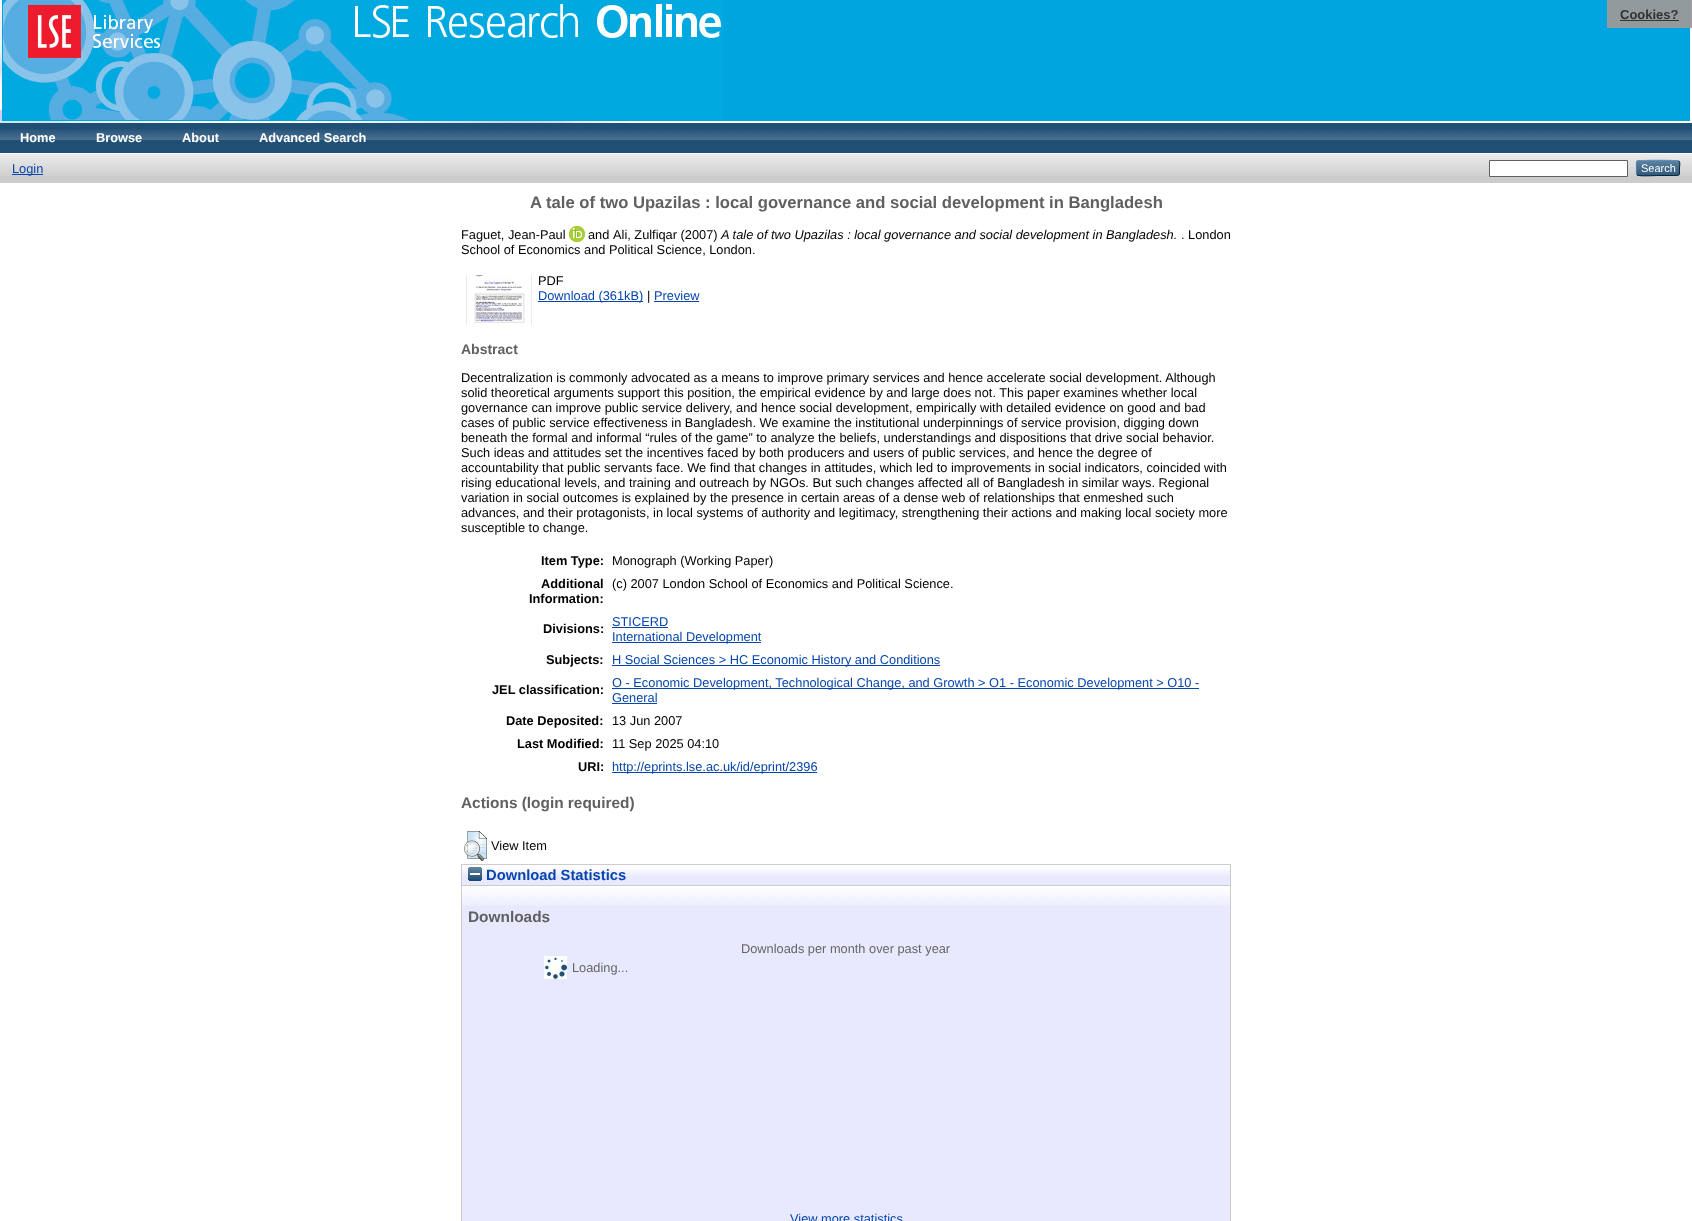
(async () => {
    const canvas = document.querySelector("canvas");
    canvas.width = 1692;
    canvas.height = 1221;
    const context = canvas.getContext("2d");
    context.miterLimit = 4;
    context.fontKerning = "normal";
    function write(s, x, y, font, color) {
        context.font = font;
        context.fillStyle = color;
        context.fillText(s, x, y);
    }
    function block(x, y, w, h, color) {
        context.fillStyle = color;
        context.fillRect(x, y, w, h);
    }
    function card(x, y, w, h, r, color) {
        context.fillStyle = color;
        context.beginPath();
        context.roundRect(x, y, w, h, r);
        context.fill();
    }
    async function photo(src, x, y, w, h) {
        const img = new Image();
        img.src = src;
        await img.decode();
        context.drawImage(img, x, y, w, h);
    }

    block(0, 0, 1692, 1221, "rgb(255, 255, 255)");
    block(1690, 0, 2, 28, "rgb(158, 158, 158)");
    await photo("media/1.png", 0, 0, 629, 123);
    block(2, 0, 1688, 121, "rgb(0, 165, 223)");
    block(1607, 0, 83, 28, "rgb(145, 154, 157)");
    await photo("media/2.png", 3, 0, 720, 120);
    write("Cookies?", 1620, 19, "bold 13px Liberation Sans", "rgb(51, 51, 51)");
    block(1620, 20, 59, 1, "rgb(51, 51, 51)");
    block(0, 123, 1692, 30, "rgb(32, 79, 118)");
    await photo("media/3.png", 0, 129, 1692, 11);
    write("Home", 20, 142, "bold 12.8px Liberation Sans", "rgb(255, 255, 255)");
    write("Browse", 96, 142, "bold 12.8px Liberation Sans", "rgb(255, 255, 255)");
    write("About", 182, 142, "bold 12.8px Liberation Sans", "rgb(255, 255, 255)");
    write("Advanced Search", 259, 142, "bold 12.8px Liberation Sans", "rgb(255, 255, 255)");
    block(0, 154, 1692, 29, "rgb(204, 204, 204)");
    await photo("media/4.png", 0, 154, 1692, 22);
    block(12, 174, 31, 1, "rgb(6, 69, 173)");
    write("Login", 12, 173, "12.8px Liberation Sans", "rgb(6, 69, 173)");
    context.fillStyle = "rgb(255, 255, 255)";
    context.beginPath();
    context.rect(1489.5, 160.5, 138, 16);
    context.fill();
    context.strokeStyle = "rgb(96, 96, 96)";
    context.stroke();
    card(1636, 160, 44, 16, 3, "rgb(31, 79, 118)");
    await photo("media/5.png", 1636, 160, 44, 16);
    context.beginPath();
    context.moveTo(1637, 161);
    context.bezierCurveTo(1638.5, 160, 1677.5, 160, 1679, 161);
    context.strokeStyle = "rgb(91, 151, 199)";
    context.stroke();
    context.beginPath();
    context.moveTo(1679, 161);
    context.bezierCurveTo(1680.5, 163, 1679.5, 166, 1679.5, 168);
    context.bezierCurveTo(1679.5, 176.5, 1680, 175.5, 1670.5, 175.5);
    context.lineTo(1658, 175.5);
    context.bezierCurveTo(1655, 175.5, 1639, 176.5, 1637, 175);
    context.strokeStyle = "rgb(13, 33, 49)";
    context.stroke();
    context.beginPath();
    context.moveTo(1637, 175);
    context.bezierCurveTo(1636, 173.5, 1636.5, 169.5, 1636.5, 168);
    context.bezierCurveTo(1636.5, 166.5, 1636, 162.5, 1637, 161);
    context.strokeStyle = "rgb(82, 135, 179)";
    context.stroke();
    write("Search", 1641, 172, "11px Liberation Sans", "rgb(255, 255, 255)");
    write("A tale of two Upazilas : local governance and social development in Bangladesh", 530, 208, "bold 16.65px Liberation Sans", "rgb(96, 96, 96)");
    write("Faguet, Jean-Paul", 461, 239, "12.8px Liberation Sans", "rgb(0, 0, 0)");
    await photo("media/6.png", 569, 226, 16, 16);
    write("and", 588, 239, "12.8px Liberation Sans", "rgb(0, 0, 0)");
    write("Ali, Zulfiqar (2007)", 613, 239, "12.8px Liberation Sans", "rgb(0, 0, 0)");
    write("A tale of two Upazilas : local governance and social development in Bangladesh.", 721, 239, "italic 12.8px Liberation Sans", "rgb(0, 0, 0)");
    write(". London", 1181, 239, "12.8px Liberation Sans", "rgb(0, 0, 0)");
    write("School of Economics and Political Science, London.", 461, 254, "12.8px Liberation Sans", "rgb(0, 0, 0)");
    await photo("media/7.png", 466, 275, 66, 50);
    write("PDF", 538, 285, "12.8px Liberation Sans", "rgb(0, 0, 0)");
    block(538, 301, 105, 1, "rgb(6, 69, 173)");
    write("Download (361kB)", 538, 300, "12.8px Liberation Sans", "rgb(6, 69, 173)");
    write("|", 647, 300, "12.8px Liberation Sans", "rgb(0, 0, 0)");
    write("Preview", 654, 300, "12.8px Liberation Sans", "rgb(6, 69, 173)");
    block(654, 301, 45, 1, "rgb(6, 69, 173)");
    write("Abstract", 461, 354, "bold 14px Liberation Sans", "rgb(96, 96, 96)");
    write("Decentralization is commonly advocated as a means to improve primary services and hence accelerate social development. Although", 461, 382, "12.8px Liberation Sans", "rgb(0, 0, 0)");
    write("solid theoretical arguments support this position, the empirical evidence by and large does not. This paper examines whether local", 461, 397, "12.8px Liberation Sans", "rgb(0, 0, 0)");
    write("governance can improve public service delivery, and hence social development, empirically with detailed evidence on good and bad", 461, 412, "12.8px Liberation Sans", "rgb(0, 0, 0)");
    write("cases of public service effectiveness in Bangladesh. We examine the institutional underpinnings of service provision, digging down", 461, 427, "12.8px Liberation Sans", "rgb(0, 0, 0)");
    write("beneath the formal and informal “rules of the game” to analyze the beliefs, understandings and dispositions that drive social behavior.", 461, 442, "12.8px Liberation Sans", "rgb(0, 0, 0)");
    write("Such ideas and attitudes set the incentives faced by both producers and users of public services, and hence the degree of", 461, 457, "12.8px Liberation Sans", "rgb(0, 0, 0)");
    write("accountability that public servants face. We find that changes in attitudes, which led to improvements in social indicators, coincided with", 461, 472, "12.8px Liberation Sans", "rgb(0, 0, 0)");
    write("rising educational levels, and training and outreach by NGOs. But such changes affected all of Bangladesh in similar ways. Regional", 461, 487, "12.8px Liberation Sans", "rgb(0, 0, 0)");
    write("variation in social outcomes is explained by the presence in certain areas of a dense web of relationships that enmeshed such", 461, 502, "12.8px Liberation Sans", "rgb(0, 0, 0)");
    write("advances, and their protagonists, in local systems of authority and legitimacy, strengthening their actions and making local society more", 461, 517, "12.8px Liberation Sans", "rgb(0, 0, 0)");
    write("susceptible to change.", 461, 532, "12.8px Liberation Sans", "rgb(0, 0, 0)");
    write("Item Type:", 541, 565, "bold 12.8px Liberation Sans", "rgb(0, 0, 0)");
    write("Monograph (Working Paper)", 612, 565, "12.8px Liberation Sans", "rgb(0, 0, 0)");
    write("Additional", 541, 588, "bold 12.8px Liberation Sans", "rgb(0, 0, 0)");
    write("Information:", 529, 603, "bold 12.8px Liberation Sans", "rgb(0, 0, 0)");
    write("(c) 2007 London School of Economics and Political Science.", 612, 588, "12.8px Liberation Sans", "rgb(0, 0, 0)");
    write("Divisions:", 543, 633, "bold 12.8px Liberation Sans", "rgb(0, 0, 0)");
    write("STICERD", 612, 626, "12.8px Liberation Sans", "rgb(6, 69, 173)");
    block(612, 627, 56, 1, "rgb(6, 69, 173)");
    block(612, 642, 149, 1, "rgb(6, 69, 173)");
    write("International Development", 612, 641, "12.8px Liberation Sans", "rgb(6, 69, 173)");
    write("Subjects:", 546, 664, "bold 12.8px Liberation Sans", "rgb(0, 0, 0)");
    block(612, 665, 328, 1, "rgb(6, 69, 173)");
    write("H Social Sciences > HC Economic History and Conditions", 612, 664, "12.8px Liberation Sans", "rgb(6, 69, 173)");
    write("JEL classification:", 492, 694, "bold 12.8px Liberation Sans", "rgb(0, 0, 0)");
    block(612, 688, 587, 1, "rgb(6, 69, 173)");
    write("O - Economic Development, Technological Change, and Growth > O1 - Economic Development > O10 -", 612, 687, "12.8px Liberation Sans", "rgb(6, 69, 173)");
    write("General", 612, 702, "12.8px Liberation Sans", "rgb(6, 69, 173)");
    block(612, 703, 45, 1, "rgb(6, 69, 173)");
    write("Date Deposited:", 506, 725, "bold 12.8px Liberation Sans", "rgb(0, 0, 0)");
    write("13 Jun 2007", 612, 725, "12.8px Liberation Sans", "rgb(0, 0, 0)");
    write("Last Modified:", 517, 748, "bold 12.8px Liberation Sans", "rgb(0, 0, 0)");
    write("11 Sep 2025 04:10", 612, 748, "12.8px Liberation Sans", "rgb(0, 0, 0)");
    write("URI:", 578, 771, "bold 12.8px Liberation Sans", "rgb(0, 0, 0)");
    block(612, 772, 205, 1, "rgb(6, 69, 173)");
    write("http://eprints.lse.ac.uk/id/eprint/2396", 612, 771, "12.8px Liberation Sans", "rgb(6, 69, 173)");
    write("Actions (login required)", 461, 808, "bold 15.4px Liberation Sans", "rgb(96, 96, 96)");
    await photo("media/8.png", 464, 831, 23, 30);
    write("View Item", 491, 850, "12.8px Liberation Sans", "rgb(0, 0, 0)");
    block(462, 866, 768, 19, "rgb(232, 232, 255)");
    await photo("media/9.png", 462, 865, 768, 11);
    context.strokeStyle = "rgb(204, 204, 204)";
    context.strokeRect(461.5, 864.5, 769, 21);
    await photo("media/10.png", 468, 867, 14, 14);
    write("Download Statistics", 486, 880, "bold 14.75px Liberation Sans", "rgb(6, 69, 173)");
    block(462, 887, 768, 334, "rgb(232, 232, 255)");
    await photo("media/11.png", 462, 886, 768, 20);
    block(1230, 886, 1, 335, "rgb(204, 204, 204)");
    block(461, 886, 1, 335, "rgb(204, 204, 204)");
    write("Downloads", 468, 922, "bold 15.4px Liberation Sans", "rgb(96, 96, 96)");
    write("Downloads per month over past year", 741, 953, "12.8px Liberation Sans", "rgb(102, 102, 102)");
    await photo("media/12.png", 544, 956, 23, 23);
    write("Loading...", 572, 972, "12.8px Liberation Sans", "rgb(102, 102, 102)");
    write("View more statistics", 790, 1223, "12.8px Liberation Sans", "rgb(6, 69, 173)");
})();
